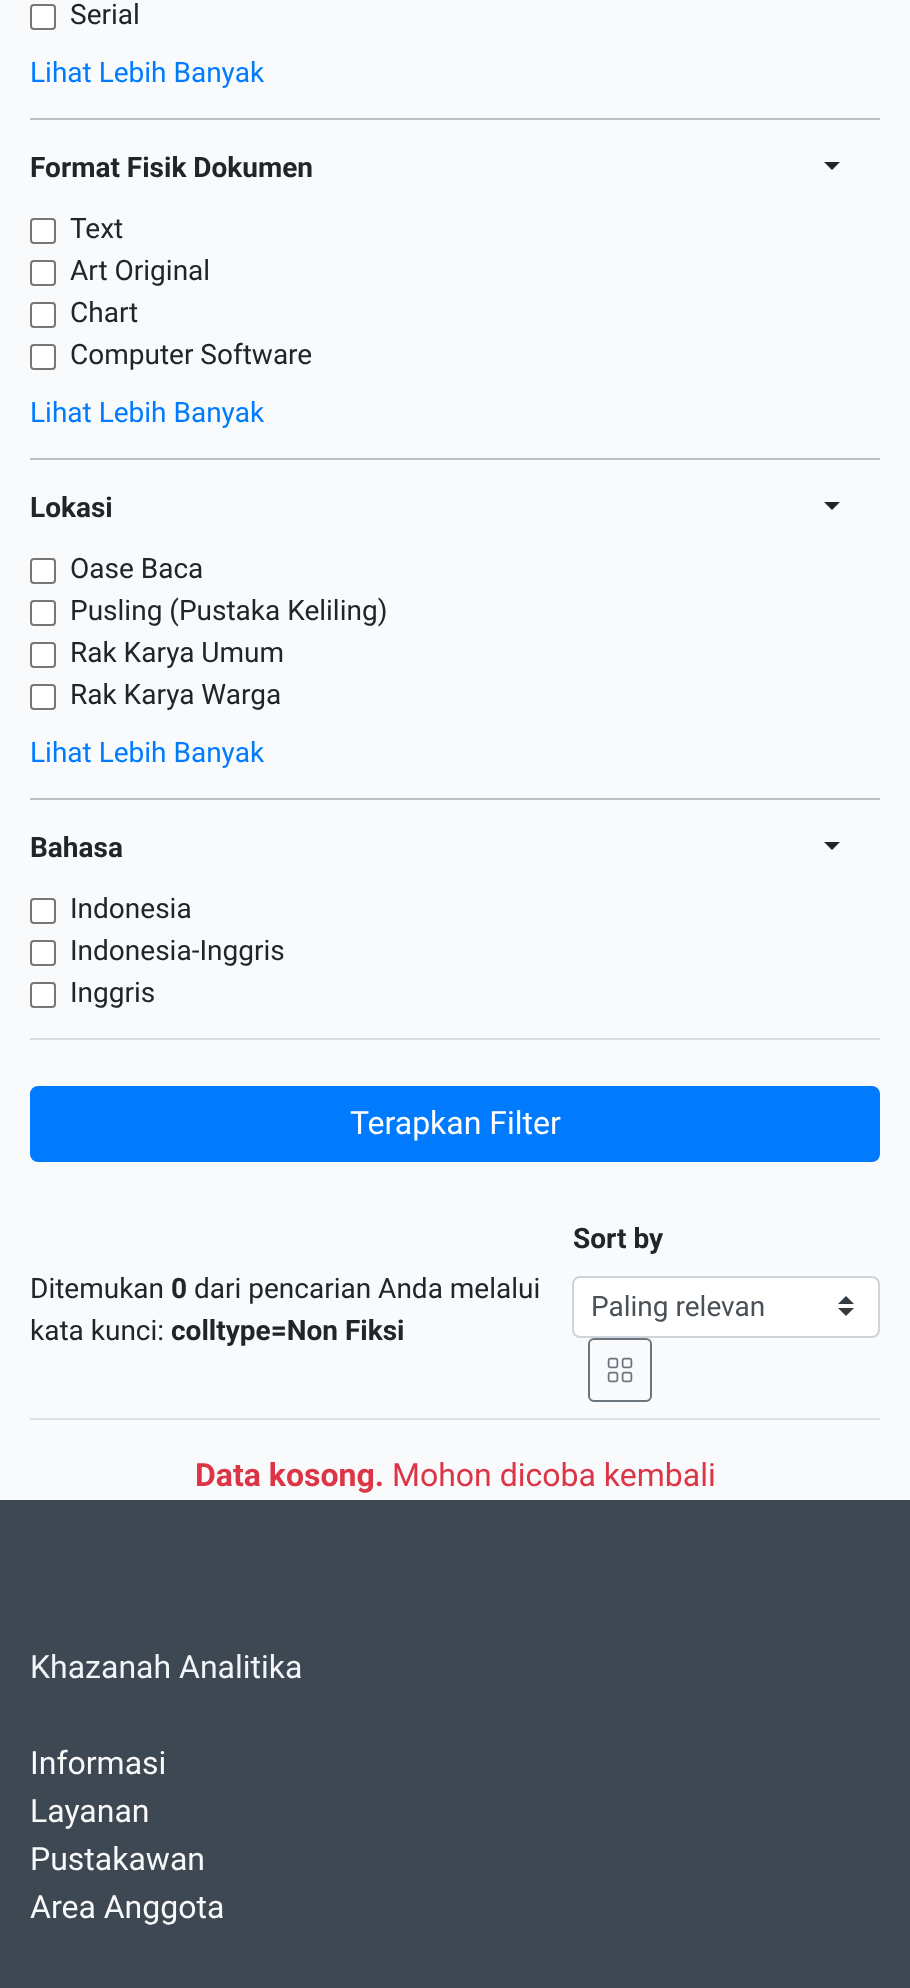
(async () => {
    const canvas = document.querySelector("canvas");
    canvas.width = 910;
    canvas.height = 1988;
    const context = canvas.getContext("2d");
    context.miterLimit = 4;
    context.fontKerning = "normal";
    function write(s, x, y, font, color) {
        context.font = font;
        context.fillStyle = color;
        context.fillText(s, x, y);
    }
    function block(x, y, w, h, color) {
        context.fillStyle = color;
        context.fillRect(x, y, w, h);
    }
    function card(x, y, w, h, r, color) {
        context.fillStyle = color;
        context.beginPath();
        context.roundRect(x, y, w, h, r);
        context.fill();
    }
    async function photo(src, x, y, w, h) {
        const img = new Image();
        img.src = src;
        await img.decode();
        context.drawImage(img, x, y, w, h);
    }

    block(0, 0, 910, 1988, "rgb(248, 250, 252)");
    context.fillStyle = "rgb(255, 255, 255)";
    context.beginPath();
    context.roundRect(31, 5, 24, 24, 3);
    context.fill();
    context.strokeStyle = "rgb(118, 118, 118)";
    context.lineWidth = 2;
    context.stroke();
    write("Serial", 70, 24, "28px Roboto", "rgb(33, 37, 41)");
    write("Lihat Lebih Banyak", 30, 82, "28px Roboto", "rgb(0, 123, 255)");
    block(30, 118, 850, 2, "rgb(190, 192, 193)");
    write("Format Fisik Dokumen", 30, 177, "bold 28px Roboto", "rgb(33, 37, 41)");
    context.beginPath();
    context.moveTo(824, 162);
    context.lineTo(840, 162);
    context.lineTo(832, 170);
    context.closePath();
    context.fill();
    context.fillStyle = "rgb(255, 255, 255)";
    context.beginPath();
    context.roundRect(31, 219, 24, 24, 3);
    context.fill();
    context.stroke();
    write("Text", 70, 238, "28px Roboto", "rgb(33, 37, 41)");
    context.fillStyle = "rgb(255, 255, 255)";
    context.beginPath();
    context.roundRect(31, 261, 24, 24, 3);
    context.fill();
    context.stroke();
    write("Art Original", 70, 280, "28px Roboto", "rgb(33, 37, 41)");
    context.fillStyle = "rgb(255, 255, 255)";
    context.beginPath();
    context.roundRect(31, 303, 24, 24, 3);
    context.fill();
    context.stroke();
    write("Chart", 70, 322, "28px Roboto", "rgb(33, 37, 41)");
    context.fillStyle = "rgb(255, 255, 255)";
    context.beginPath();
    context.roundRect(31, 345, 24, 24, 3);
    context.fill();
    context.stroke();
    write("Computer Software", 70, 364, "28px Roboto", "rgb(33, 37, 41)");
    write("Lihat Lebih Banyak", 30, 422, "28px Roboto", "rgb(0, 123, 255)");
    block(30, 458, 850, 2, "rgb(190, 192, 193)");
    write("Lokasi", 30, 517, "bold 28px Roboto", "rgb(33, 37, 41)");
    context.beginPath();
    context.moveTo(824, 502);
    context.lineTo(840, 502);
    context.lineTo(832, 510);
    context.closePath();
    context.fill();
    context.fillStyle = "rgb(255, 255, 255)";
    context.beginPath();
    context.roundRect(31, 559, 24, 24, 3);
    context.fill();
    context.stroke();
    write("Oase Baca", 70, 578, "28px Roboto", "rgb(33, 37, 41)");
    context.fillStyle = "rgb(255, 255, 255)";
    context.beginPath();
    context.roundRect(31, 601, 24, 24, 3);
    context.fill();
    context.stroke();
    write("Pusling (Pustaka Keliling)", 70, 620, "28px Roboto", "rgb(33, 37, 41)");
    context.fillStyle = "rgb(255, 255, 255)";
    context.beginPath();
    context.roundRect(31, 643, 24, 24, 3);
    context.fill();
    context.stroke();
    write("Rak Karya Umum", 70, 662, "28px Roboto", "rgb(33, 37, 41)");
    context.fillStyle = "rgb(255, 255, 255)";
    context.beginPath();
    context.roundRect(31, 685, 24, 24, 3);
    context.fill();
    context.stroke();
    write("Rak Karya Warga", 70, 704, "28px Roboto", "rgb(33, 37, 41)");
    write("Lihat Lebih Banyak", 30, 762, "28px Roboto", "rgb(0, 123, 255)");
    block(30, 798, 850, 2, "rgb(190, 192, 193)");
    block(30, 1038, 850, 2, "rgb(217, 219, 221)");
    write("Bahasa", 30, 857, "bold 28px Roboto", "rgb(33, 37, 41)");
    context.beginPath();
    context.moveTo(824, 842);
    context.lineTo(840, 842);
    context.lineTo(832, 850);
    context.closePath();
    context.fill();
    context.fillStyle = "rgb(255, 255, 255)";
    context.beginPath();
    context.roundRect(31, 899, 24, 24, 3);
    context.fill();
    context.stroke();
    write("Indonesia", 70, 918, "28px Roboto", "rgb(33, 37, 41)");
    context.fillStyle = "rgb(255, 255, 255)";
    context.beginPath();
    context.roundRect(31, 941, 24, 24, 3);
    context.fill();
    context.stroke();
    write("Indonesia-Inggris", 70, 960, "28px Roboto", "rgb(33, 37, 41)");
    context.fillStyle = "rgb(255, 255, 255)";
    context.beginPath();
    context.roundRect(31, 983, 24, 24, 3);
    context.fill();
    context.stroke();
    write("Inggris", 70, 1002, "28px Roboto", "rgb(33, 37, 41)");
    context.fillStyle = "rgb(0, 123, 255)";
    context.beginPath();
    context.roundRect(31, 1087, 848, 74, 7);
    context.fill();
    context.strokeStyle = "rgb(0, 123, 255)";
    context.stroke();
    write("Terapkan Filter", 350, 1134, "32px Roboto", "rgb(255, 255, 255)");
    write("Ditemukan", 30, 1298, "28px Roboto", "rgb(33, 37, 41)");
    write("0", 171, 1298, "bold 28px Roboto", "rgb(33, 37, 41)");
    write("dari pencarian Anda melalui", 194, 1298, "28px Roboto", "rgb(33, 37, 41)");
    write("kata kunci:", 30, 1340, "28px Roboto", "rgb(33, 37, 41)");
    write("colltype=Non Fiksi", 171, 1340, "bold 28px Roboto", "rgb(33, 37, 41)");
    write("Sort by", 573, 1248, "bold 28px Roboto", "rgb(33, 37, 41)");
    card(572, 1276, 308, 62, 8, "rgb(255, 255, 255)");
    context.fillStyle = "rgb(52, 58, 64)";
    context.beginPath();
    context.moveTo(846, 1296);
    context.lineTo(838, 1304);
    context.lineTo(854, 1304);
    context.closePath();
    context.moveTo(846, 1316);
    context.lineTo(838, 1308);
    context.lineTo(854, 1308);
    context.closePath();
    context.fill();
    context.beginPath();
    context.roundRect(573, 1277, 306, 60, 7);
    context.strokeStyle = "rgb(206, 212, 218)";
    context.stroke();
    write("Paling relevan", 591, 1316, "28px Roboto", "rgb(73, 80, 87)");
    context.beginPath();
    context.roundRect(589, 1339, 62, 62, 5);
    context.strokeStyle = "rgb(108, 117, 125)";
    context.stroke();
    await photo("media/1.png", 607, 1357, 26, 26);
    block(30, 1418, 850, 2, "rgb(218, 225, 231)");
    write("Data kosong.", 195, 1486, "bold 32px Roboto", "rgb(220, 53, 69)");
    write("Mohon dicoba kembali", 392, 1486, "32px Roboto", "rgb(220, 53, 69)");
    block(0, 1500, 910, 488, "rgb(61, 72, 82)");
    write("Khazanah Analitika", 30, 1678, "32px Roboto", "rgb(241, 245, 248)");
    write("Informasi", 30, 1774, "32px Roboto", "rgb(248, 249, 250)");
    write("Layanan", 30, 1822, "32px Roboto", "rgb(248, 249, 250)");
    write("Pustakawan", 30, 1870, "32px Roboto", "rgb(248, 249, 250)");
    write("Area Anggota", 30, 1918, "32px Roboto", "rgb(248, 249, 250)");
})();
